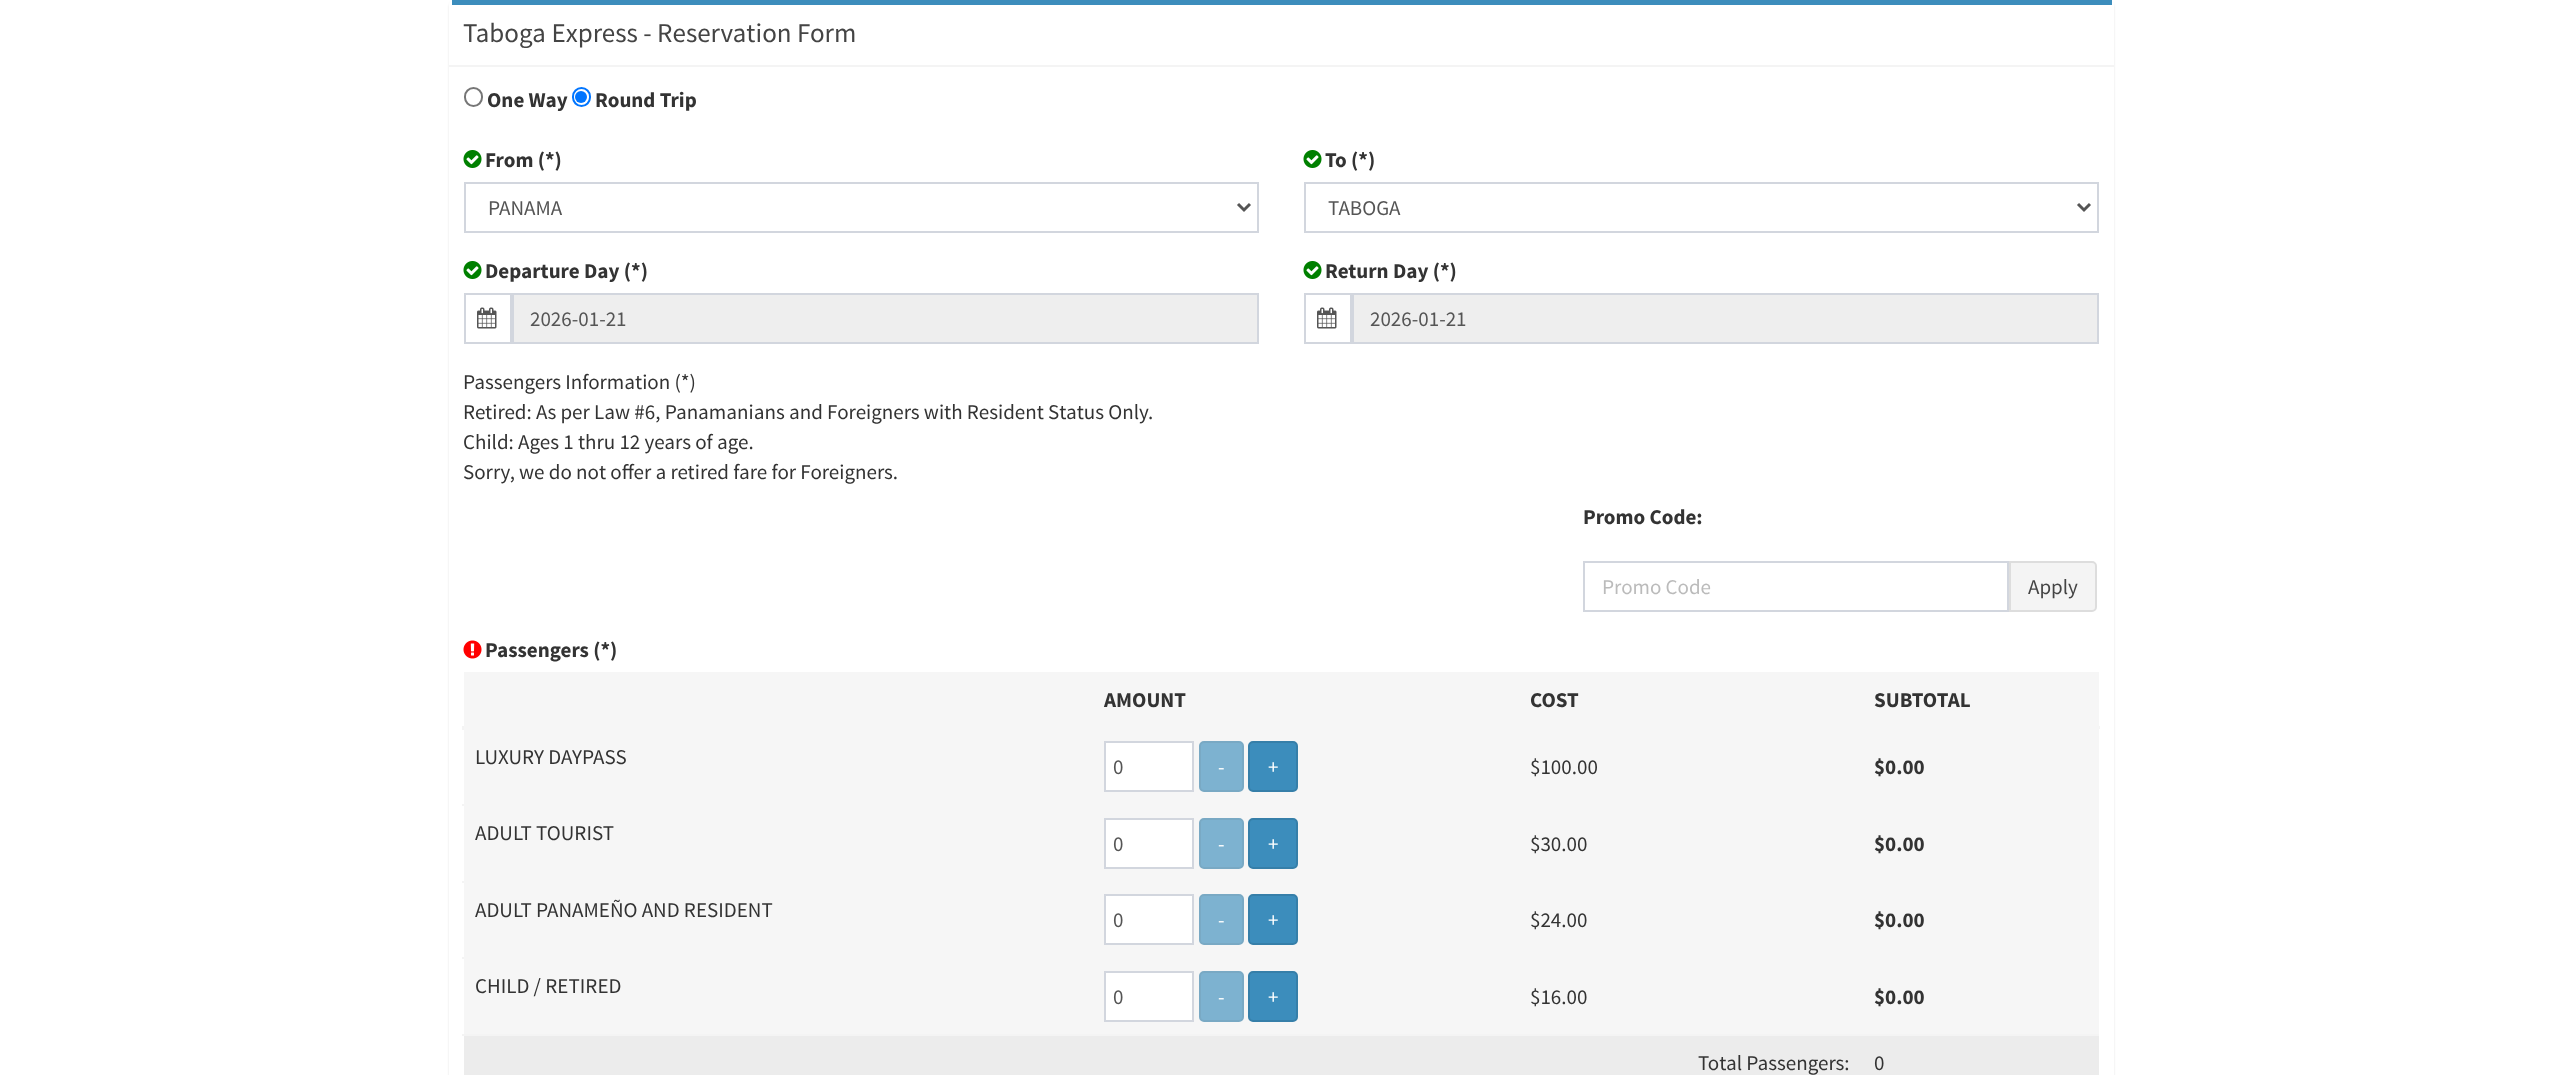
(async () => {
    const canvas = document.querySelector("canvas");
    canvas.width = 2560;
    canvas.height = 1075;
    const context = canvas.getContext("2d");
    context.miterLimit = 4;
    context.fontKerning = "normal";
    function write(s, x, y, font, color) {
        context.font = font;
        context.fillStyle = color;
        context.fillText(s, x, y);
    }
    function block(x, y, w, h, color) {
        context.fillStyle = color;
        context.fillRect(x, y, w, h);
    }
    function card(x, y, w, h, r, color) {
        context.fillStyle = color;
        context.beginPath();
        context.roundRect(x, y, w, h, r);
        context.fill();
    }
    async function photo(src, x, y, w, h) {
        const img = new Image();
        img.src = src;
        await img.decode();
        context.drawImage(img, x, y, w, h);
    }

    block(0, 0, 2560, 1075, "rgb(255, 255, 255)");
    context.fillStyle = "rgba(0, 0, 0, 0.1)";
    context.filter = "blur(1px)";
    context.beginPath();
    context.roundRect(449, 2, 1665, 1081, 5);
    context.fill();
    context.filter = "none";
    card(449, 0, 1665, 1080, 5, "rgb(255, 255, 255)");
    block(452, 0, 1660, 5, "rgb(60, 141, 188)");
    block(449, 65, 1665, 2, "rgb(244, 244, 244)");
    write("Taboga Express - Reservation Form", 463, 42, "27px Source Sans Pro", "rgb(68, 68, 68)");
    context.beginPath();
    context.roundRect(465, 88, 17, 18, 8.5);
    context.strokeStyle = "rgb(118, 118, 118)";
    context.lineWidth = 2;
    context.stroke();
    write("One Way", 487, 107, "bold 21px Source Sans Pro", "rgb(51, 51, 51)");
    context.beginPath();
    context.roundRect(573, 88, 17, 18, 8.5);
    context.strokeStyle = "rgb(0, 117, 255)";
    context.stroke();
    context.fillStyle = "rgb(0, 117, 255)";
    context.beginPath();
    context.arc(581, 97, 6, 0, Math.PI * 2);
    context.fill();
    write("Round Trip", 595, 107, "bold 21px Source Sans Pro", "rgb(51, 51, 51)");
    await photo("media/1.png", 463, 150, 19, 18);
    write("From (*)", 485, 167, "bold 21px Source Sans Pro", "rgb(51, 51, 51)");
    context.strokeStyle = "rgb(210, 214, 222)";
    context.strokeRect(465, 183, 793, 49);
    context.beginPath();
    context.moveTo(1238, 204);
    context.lineTo(1244, 210);
    context.lineTo(1250, 204);
    context.strokeStyle = "rgb(85, 85, 85)";
    context.lineWidth = 3;
    context.stroke();
    write("PANAMA", 488, 215, "21px Source Sans Pro", "rgb(85, 85, 85)");
    await photo("media/1.png", 1303, 150, 19, 18);
    write("To (*)", 1325, 167, "bold 21px Source Sans Pro", "rgb(51, 51, 51)");
    context.strokeStyle = "rgb(210, 214, 222)";
    context.lineWidth = 2;
    context.strokeRect(1305, 183, 793, 49);
    context.beginPath();
    context.moveTo(2078, 204);
    context.lineTo(2084, 210);
    context.lineTo(2090, 204);
    context.strokeStyle = "rgb(85, 85, 85)";
    context.lineWidth = 3;
    context.stroke();
    write("TABOGA", 1328, 215, "21px Source Sans Pro", "rgb(85, 85, 85)");
    await photo("media/1.png", 463, 261, 19, 18);
    write("Departure Day (*)", 485, 278, "bold 21px Source Sans Pro", "rgb(51, 51, 51)");
    context.strokeStyle = "rgb(210, 214, 222)";
    context.lineWidth = 2;
    context.strokeRect(465, 294, 46, 49);
    await photo("media/2.png", 477, 307, 20, 22);
    context.fillStyle = "rgb(238, 238, 238)";
    context.beginPath();
    context.rect(513, 294, 745, 49);
    context.fill();
    context.stroke();
    write("2026-01-21", 530, 326, "21px Source Sans Pro", "rgb(85, 85, 85)");
    await photo("media/1.png", 1303, 261, 19, 18);
    write("Return Day (*)", 1325, 278, "bold 21px Source Sans Pro", "rgb(51, 51, 51)");
    context.strokeRect(1305, 294, 46, 49);
    await photo("media/2.png", 1317, 307, 20, 22);
    context.fillStyle = "rgb(238, 238, 238)";
    context.beginPath();
    context.rect(1353, 294, 745, 49);
    context.fill();
    context.stroke();
    write("2026-01-21", 1370, 326, "21px Source Sans Pro", "rgb(85, 85, 85)");
    write("Passengers Information (*)", 463, 389, "21px Source Sans Pro", "rgb(51, 51, 51)");
    write("Retired: As per Law #6, Panamanians and Foreigners with Resident Status Only.", 463, 419, "21px Source Sans Pro", "rgb(51, 51, 51)");
    write("Child: Ages 1 thru 12 years of age.", 463, 449, "21px Source Sans Pro", "rgb(51, 51, 51)");
    write("Sorry, we do not offer a retired fare for Foreigners.", 463, 479, "21px Source Sans Pro", "rgb(51, 51, 51)");
    write("Promo Code:", 1583, 524, "bold 21px Source Sans Pro", "rgb(51, 51, 51)");
    context.strokeRect(1584, 562, 424, 49);
    write("Promo Code", 1602, 594, "21px Source Sans Pro", "rgb(187, 187, 187)");
    context.fillStyle = "rgb(244, 244, 244)";
    context.beginPath();
    context.roundRect(2010, 562, 86, 49, [0, 4, 4, 0]);
    context.fill();
    context.strokeStyle = "rgb(221, 221, 221)";
    context.stroke();
    write("Apply", 2028, 594, "21px Source Sans Pro", "rgb(68, 68, 68)");
    await photo("media/3.png", 463, 640, 19, 19);
    write("Passengers (*)", 485, 657, "bold 21px Source Sans Pro", "rgb(51, 51, 51)");
    block(464, 672, 1635, 362, "rgb(246, 246, 246)");
    write("AMOUNT", 1104, 707, "bold 21px Source Sans Pro", "rgb(51, 51, 51)");
    write("COST", 1530, 707, "bold 21px Source Sans Pro", "rgb(51, 51, 51)");
    block(2099, 726, 1, 3, "rgb(244, 244, 244)");
    write("SUBTOTAL", 1874, 707, "bold 21px Source Sans Pro", "rgb(51, 51, 51)");
    block(462, 726, 2, 4, "rgb(244, 244, 244)");
    write("LUXURY DAYPASS", 475, 764, "21px Source Sans Pro", "rgb(51, 51, 51)");
    context.fillStyle = "rgb(255, 255, 255)";
    context.beginPath();
    context.rect(1105, 742, 88, 49);
    context.fill();
    context.strokeStyle = "rgb(210, 214, 222)";
    context.stroke();
    write("0", 1113, 774, "21px Source Sans Pro", "rgb(85, 85, 85)");
    context.fillStyle = "rgb(125, 178, 208)";
    context.beginPath();
    context.roundRect(1200, 742, 43, 49, 4);
    context.fill();
    context.strokeStyle = "rgb(121, 169, 196)";
    context.stroke();
    write("-", 1218, 774, "21px Source Sans Pro", "rgb(255, 255, 255)");
    context.fillStyle = "rgb(60, 141, 188)";
    context.beginPath();
    context.roundRect(1249, 742, 48, 49, 4);
    context.fill();
    context.strokeStyle = "rgb(54, 127, 169)";
    context.stroke();
    write("+", 1268, 774, "21px Source Sans Pro", "rgb(255, 255, 255)");
    write("$100.00", 1530, 774, "21px Source Sans Pro", "rgb(51, 51, 51)");
    write("$0.00", 1874, 774, "bold 21px Source Sans Pro", "rgb(51, 51, 51)");
    block(462, 804, 2, 2, "rgb(244, 244, 244)");
    write("ADULT TOURIST", 475, 840, "21px Source Sans Pro", "rgb(51, 51, 51)");
    context.fillStyle = "rgb(255, 255, 255)";
    context.beginPath();
    context.rect(1105, 819, 88, 49);
    context.fill();
    context.strokeStyle = "rgb(210, 214, 222)";
    context.stroke();
    write("0", 1113, 851, "21px Source Sans Pro", "rgb(85, 85, 85)");
    context.fillStyle = "rgb(125, 178, 208)";
    context.beginPath();
    context.roundRect(1200, 819, 43, 49, 4);
    context.fill();
    context.strokeStyle = "rgb(121, 169, 196)";
    context.stroke();
    write("-", 1218, 851, "21px Source Sans Pro", "rgb(255, 255, 255)");
    context.fillStyle = "rgb(60, 141, 188)";
    context.beginPath();
    context.roundRect(1249, 819, 48, 49, 4);
    context.fill();
    context.strokeStyle = "rgb(54, 127, 169)";
    context.stroke();
    write("+", 1268, 851, "21px Source Sans Pro", "rgb(255, 255, 255)");
    write("$30.00", 1530, 851, "21px Source Sans Pro", "rgb(51, 51, 51)");
    write("$0.00", 1874, 851, "bold 21px Source Sans Pro", "rgb(51, 51, 51)");
    block(462, 881, 2, 2, "rgb(244, 244, 244)");
    write("ADULT PANAMEÑO AND RESIDENT", 475, 917, "21px Source Sans Pro", "rgb(51, 51, 51)");
    context.fillStyle = "rgb(255, 255, 255)";
    context.beginPath();
    context.rect(1105, 895, 88, 49);
    context.fill();
    context.strokeStyle = "rgb(210, 214, 222)";
    context.stroke();
    write("0", 1113, 927, "21px Source Sans Pro", "rgb(85, 85, 85)");
    context.fillStyle = "rgb(125, 178, 208)";
    context.beginPath();
    context.roundRect(1200, 895, 43, 49, 4);
    context.fill();
    context.strokeStyle = "rgb(121, 169, 196)";
    context.stroke();
    write("-", 1218, 927, "21px Source Sans Pro", "rgb(255, 255, 255)");
    context.fillStyle = "rgb(60, 141, 188)";
    context.beginPath();
    context.roundRect(1249, 895, 48, 49, 4);
    context.fill();
    context.strokeStyle = "rgb(54, 127, 169)";
    context.stroke();
    write("+", 1268, 927, "21px Source Sans Pro", "rgb(255, 255, 255)");
    write("$24.00", 1530, 927, "21px Source Sans Pro", "rgb(51, 51, 51)");
    write("$0.00", 1874, 927, "bold 21px Source Sans Pro", "rgb(51, 51, 51)");
    block(462, 957, 2, 2, "rgb(244, 244, 244)");
    write("CHILD / RETIRED", 475, 993, "21px Source Sans Pro", "rgb(51, 51, 51)");
    context.fillStyle = "rgb(255, 255, 255)";
    context.beginPath();
    context.rect(1105, 972, 88, 49);
    context.fill();
    context.strokeStyle = "rgb(210, 214, 222)";
    context.stroke();
    write("0", 1113, 1004, "21px Source Sans Pro", "rgb(85, 85, 85)");
    context.fillStyle = "rgb(125, 178, 208)";
    context.beginPath();
    context.roundRect(1200, 972, 43, 49, 4);
    context.fill();
    context.strokeStyle = "rgb(121, 169, 196)";
    context.stroke();
    write("-", 1218, 1004, "21px Source Sans Pro", "rgb(255, 255, 255)");
    context.fillStyle = "rgb(60, 141, 188)";
    context.beginPath();
    context.roundRect(1249, 972, 48, 49, 4);
    context.fill();
    context.strokeStyle = "rgb(54, 127, 169)";
    context.stroke();
    write("+", 1268, 1004, "21px Source Sans Pro", "rgb(255, 255, 255)");
    write("$16.00", 1530, 1004, "21px Source Sans Pro", "rgb(51, 51, 51)");
    write("$0.00", 1874, 1004, "bold 21px Source Sans Pro", "rgb(51, 51, 51)");
    block(464, 1036, 1635, 39, "rgb(236, 236, 236)");
    write("Total Passengers:", 1698, 1070, "21px Source Sans Pro", "rgb(51, 51, 51)");
    block(462, 1034, 1637, 2, "rgb(244, 244, 244)");
    write("0", 1874, 1070, "21px Source Sans Pro", "rgb(51, 51, 51)");
})();
